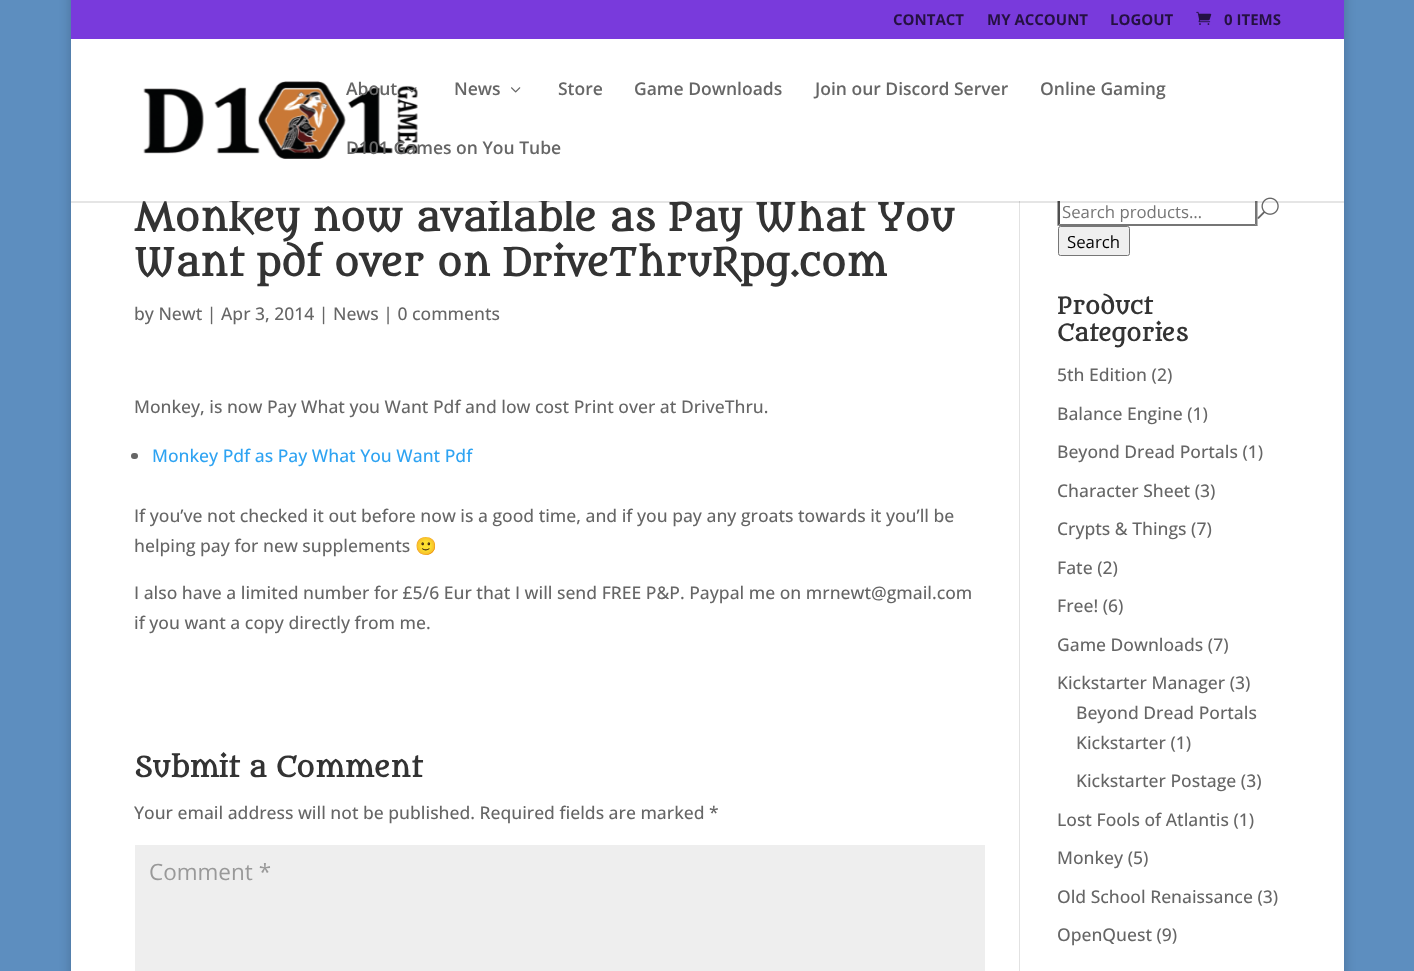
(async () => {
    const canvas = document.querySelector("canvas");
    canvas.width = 1414;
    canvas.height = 971;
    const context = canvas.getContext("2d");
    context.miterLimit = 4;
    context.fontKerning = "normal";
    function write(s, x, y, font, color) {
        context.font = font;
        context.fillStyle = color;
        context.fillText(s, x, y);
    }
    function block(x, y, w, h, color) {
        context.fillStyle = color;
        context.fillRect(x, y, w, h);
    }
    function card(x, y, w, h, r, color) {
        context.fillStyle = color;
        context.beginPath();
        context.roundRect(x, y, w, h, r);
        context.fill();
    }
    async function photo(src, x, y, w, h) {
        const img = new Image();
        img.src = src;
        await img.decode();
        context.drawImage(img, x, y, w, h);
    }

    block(0, 0, 1414, 971, "rgb(93, 142, 191)");
    context.save();
    context.beginPath();
    context.moveTo(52, 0);
    context.lineTo(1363, 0);
    context.lineTo(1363, 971);
    context.lineTo(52, 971);
    context.closePath();
    context.moveTo(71, -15);
    context.lineTo(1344, -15);
    context.lineTo(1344, 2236);
    context.lineTo(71, 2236);
    context.closePath();
    context.clip("evenodd");
    context.fillStyle = "rgba(0, 0, 0, 0.2)";
    context.filter = "blur(6px)";
    context.beginPath();
    context.rect(71, -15, 1273, 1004);
    context.fill();
    context.filter = "none";
    context.restore();
    block(71, 0, 1273, 39, "rgba(130, 36, 227, 0.79)");
    write("CONTACT", 893, 25, "bold 15px Open Sans", "rgb(37, 17, 66)");
    write("MY ACCOUNT", 987, 25, "bold 15px Open Sans", "rgb(37, 17, 66)");
    write("LOGOUT", 1110, 25, "bold 15px Open Sans", "rgb(37, 17, 66)");
    await photo("media/1.png", 1196, 11, 16, 14);
    write("0 ITEMS", 1224, 25, "bold 15px Open Sans", "rgb(37, 17, 66)");
    block(71, 201, 1273, 770, "rgb(255, 255, 255)");
    context.fillStyle = "rgb(118, 118, 118)";
    context.beginPath();
    context.moveTo(1257.5, 196);
    context.lineTo(1257.5, 226);
    context.lineTo(1255, 224);
    context.lineTo(1255, 199);
    context.closePath();
    context.fill();
    context.beginPath();
    context.moveTo(1258, 226);
    context.lineTo(1058, 226);
    context.lineTo(1060, 224);
    context.lineTo(1255, 224);
    context.closePath();
    context.fill();
    context.fillStyle = "rgb(79, 79, 79)";
    context.beginPath();
    context.moveTo(1057.5, 226);
    context.lineTo(1057.5, 196);
    context.lineTo(1060, 199);
    context.lineTo(1060, 224);
    context.closePath();
    context.fill();
    block(1019, 201, 1, 770, "rgb(226, 226, 226)");
    context.fillStyle = "rgba(0, 0, 0, 0.1)";
    context.beginPath();
    context.moveTo(71, 40);
    context.lineTo(71, 203);
    context.lineTo(1344, 203);
    context.lineTo(1344, 40);
    context.lineTo(1344, 201);
    context.lineTo(71, 201);
    context.closePath();
    context.fill();
    write("Monkey now available as Pay What You", 134, 231, "bold 37.5px Metamorphous", "rgb(51, 51, 51)");
    block(71, 39, 1273, 162, "rgb(255, 255, 255)");
    await photo("media/2.png", 143, 81, 275, 78);
    write("About", 346, 95, "600 17.5px Open Sans", "rgb(102, 102, 102)");
    await photo("media/3.png", 407, 87, 10, 6);
    write("News", 454, 95, "600 17.5px Open Sans", "rgb(102, 102, 102)");
    await photo("media/4.png", 511, 87, 10, 6);
    write("Store", 558, 95, "600 17.5px Open Sans", "rgb(102, 102, 102)");
    write("Game Downloads", 634, 95, "600 17.5px Open Sans", "rgb(102, 102, 102)");
    write("Join our Discord Server", 815, 95, "600 17.5px Open Sans", "rgb(102, 102, 102)");
    write("Online Gaming", 1040, 95, "600 17.5px Open Sans", "rgb(102, 102, 102)");
    write("D101 Games on You Tube", 346, 154, "600 17.5px Open Sans", "rgb(102, 102, 102)");
    await photo("media/5.png", 1257, 197, 22, 22);
    write("Want pdf over on DriveThruRpg.com", 134, 276, "bold 37.5px Metamorphous", "rgb(51, 51, 51)");
    write("by Newt | Apr 3, 2014 | News | 0 comments", 134, 320, "500 17.5px Open Sans", "rgb(102, 102, 102)");
    write("Monkey, is now Pay What you Want Pdf and low cost Print over at DriveThru.", 134, 413, "500 17.5px Open Sans", "rgb(102, 102, 102)");
    card(131, 453, 7, 6, 3, "rgb(102, 102, 102)");
    write("Monkey Pdf as Pay What You Want Pdf", 152, 462, "500 17.5px Open Sans", "rgb(46, 163, 242)");
    write("If you’ve not checked it out before now is a good time, and if you pay any groats towards it you’ll be", 134, 522, "500 17.5px Open Sans", "rgb(102, 102, 102)");
    write("helping pay for new supplements", 134, 552, "500 17.5px Open Sans", "rgb(102, 102, 102)");
    write("🙂", 415, 552, "17.5px Noto Color Emoji", "rgb(102, 102, 102)");
    write("I also have a limited number for £5/6 Eur that I will send FREE P&P. Paypal me on mrnewt@gmail.com", 134, 599, "500 17.5px Open Sans", "rgb(102, 102, 102)");
    write("if you want a copy directly from me.", 134, 629, "500 17.5px Open Sans", "rgb(102, 102, 102)");
    write("Submit a Comment", 134, 777, "bold 27.5px Metamorphous", "rgb(51, 51, 51)");
    write("Your email address will not be published. Required fields are marked *", 134, 819, "500 17.5px Open Sans", "rgb(102, 102, 102)");
    block(135, 845, 850, 126, "rgb(238, 238, 238)");
    write("Comment *", 149, 880, "22.5px Open Sans", "rgb(153, 153, 153)");
    write("Search products…", 1062, 218, "16.75px Open Sans", "rgb(117, 117, 117)");
    context.fillStyle = "rgb(239, 239, 239)";
    context.beginPath();
    context.roundRect(1058.5, 226.5, 71, 29, 2);
    context.fill();
    context.strokeStyle = "rgb(118, 118, 118)";
    context.stroke();
    write("Search", 1067, 248, "16.75px Open Sans", "rgb(0, 0, 0)");
    write("Product", 1057, 314, "bold 22.5px Metamorphous", "rgb(51, 51, 51)");
    write("Categories", 1057, 341, "bold 22.5px Metamorphous", "rgb(51, 51, 51)");
    write("5th Edition (2)", 1057, 381, "500 17.5px Open Sans", "rgb(102, 102, 102)");
    write("Balance Engine (1)", 1057, 420, "500 17.5px Open Sans", "rgb(102, 102, 102)");
    write("Beyond Dread Portals (1)", 1057, 458, "500 17.5px Open Sans", "rgb(102, 102, 102)");
    write("Character Sheet (3)", 1057, 497, "500 17.5px Open Sans", "rgb(102, 102, 102)");
    write("Crypts & Things (7)", 1057, 535, "500 17.5px Open Sans", "rgb(102, 102, 102)");
    write("Fate (2)", 1057, 574, "500 17.5px Open Sans", "rgb(102, 102, 102)");
    write("Free! (6)", 1057, 612, "500 17.5px Open Sans", "rgb(102, 102, 102)");
    write("Game Downloads (7)", 1057, 651, "500 17.5px Open Sans", "rgb(102, 102, 102)");
    write("Kickstarter Manager (3)", 1057, 689, "500 17.5px Open Sans", "rgb(102, 102, 102)");
    write("Beyond Dread Portals", 1076, 719, "500 17.5px Open Sans", "rgb(102, 102, 102)");
    write("Kickstarter (1)", 1076, 749, "500 17.5px Open Sans", "rgb(102, 102, 102)");
    write("Kickstarter Postage (3)", 1076, 787, "500 17.5px Open Sans", "rgb(102, 102, 102)");
    write("Lost Fools of Atlantis (1)", 1057, 826, "500 17.5px Open Sans", "rgb(102, 102, 102)");
    write("Monkey (5)", 1057, 864, "500 17.5px Open Sans", "rgb(102, 102, 102)");
    write("Old School Renaissance (3)", 1057, 903, "500 17.5px Open Sans", "rgb(102, 102, 102)");
    write("OpenQuest (9)", 1057, 941, "500 17.5px Open Sans", "rgb(102, 102, 102)");
})();
